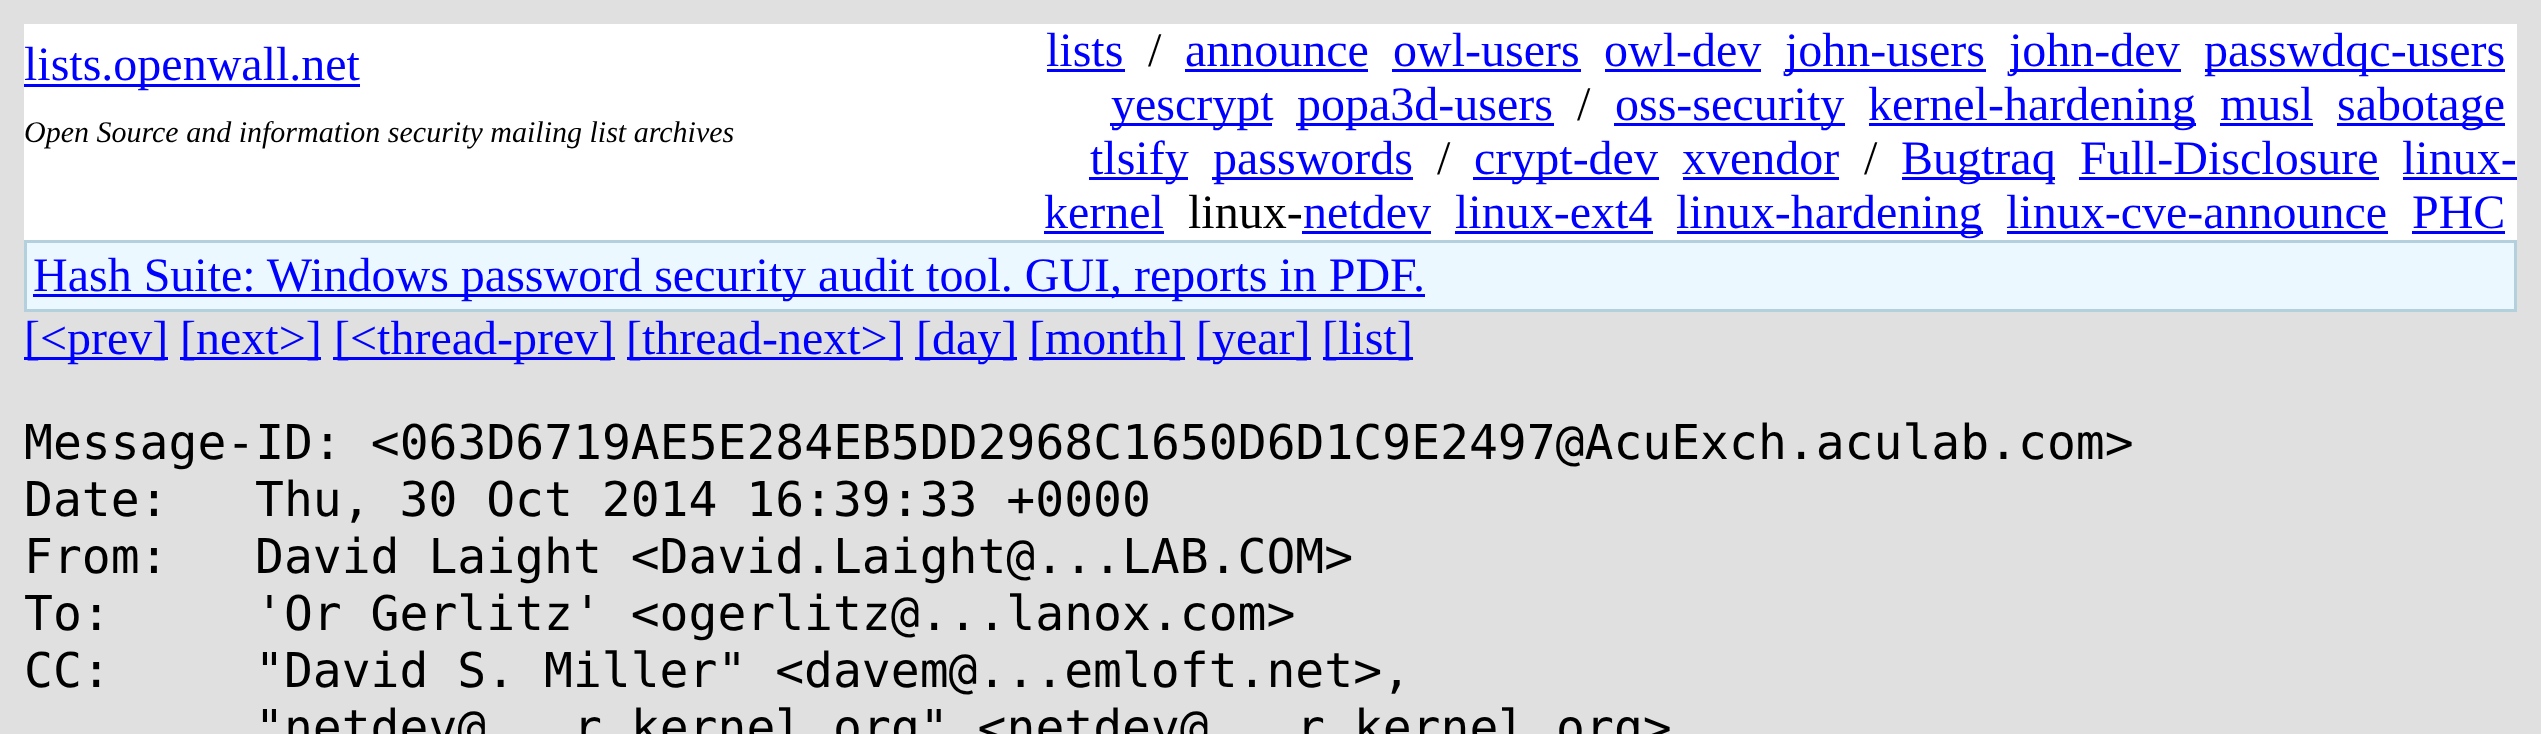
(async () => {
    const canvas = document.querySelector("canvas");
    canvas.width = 2541;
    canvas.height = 734;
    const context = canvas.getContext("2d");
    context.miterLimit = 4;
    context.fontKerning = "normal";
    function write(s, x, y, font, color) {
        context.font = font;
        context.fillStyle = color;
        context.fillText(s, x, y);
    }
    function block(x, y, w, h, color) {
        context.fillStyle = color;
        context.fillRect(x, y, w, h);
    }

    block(0, 0, 2541, 734, "rgb(224, 224, 224)");
    block(24, 24, 2493, 216, "rgb(255, 255, 255)");
    block(24, 84, 336, 3, "rgb(0, 0, 255)");
    write("lists.openwall.net", 24, 80, "48px Liberation Serif", "rgb(0, 0, 255)");
    write("lists", 1046, 66, "48px Liberation Serif", "rgb(0, 0, 255)");
    block(1047, 69, 78, 3, "rgb(0, 0, 255)");
    write("/", 1148, 66, "48px Liberation Serif", "rgb(0, 0, 0)");
    write("announce", 1185, 66, "48px Liberation Serif", "rgb(0, 0, 255)");
    block(1185, 69, 183, 3, "rgb(0, 0, 255)");
    write("owl-users", 1393, 66, "48px Liberation Serif", "rgb(0, 0, 255)");
    block(1392, 69, 189, 3, "rgb(0, 0, 255)");
    write("owl-dev", 1604, 66, "48px Liberation Serif", "rgb(0, 0, 255)");
    block(1605, 69, 156, 3, "rgb(0, 0, 255)");
    block(1785, 69, 201, 3, "rgb(0, 0, 255)");
    write("john-users", 1785, 66, "48px Liberation Serif", "rgb(0, 0, 255)");
    block(2010, 69, 171, 3, "rgb(0, 0, 255)");
    write("john-dev", 2009, 66, "48px Liberation Serif", "rgb(0, 0, 255)");
    block(2205, 69, 300, 3, "rgb(0, 0, 255)");
    write("passwdqc-users", 2204, 66, "48px Liberation Serif", "rgb(0, 0, 255)");
    block(1110, 123, 162, 3, "rgb(0, 0, 255)");
    write("yescrypt", 1111, 120, "48px Liberation Serif", "rgb(0, 0, 255)");
    block(1296, 123, 258, 3, "rgb(0, 0, 255)");
    write("popa3d-users", 1297, 120, "48px Liberation Serif", "rgb(0, 0, 255)");
    write("/", 1577, 120, "48px Liberation Serif", "rgb(0, 0, 0)");
    block(1614, 123, 231, 3, "rgb(0, 0, 255)");
    write("oss-security", 1615, 120, "48px Liberation Serif", "rgb(0, 0, 255)");
    block(1869, 123, 327, 3, "rgb(0, 0, 255)");
    write("kernel-hardening", 1868, 120, "48px Liberation Serif", "rgb(0, 0, 255)");
    write("musl", 2220, 120, "48px Liberation Serif", "rgb(0, 0, 255)");
    block(2220, 123, 93, 3, "rgb(0, 0, 255)");
    block(2337, 123, 168, 3, "rgb(0, 0, 255)");
    write("sabotage", 2337, 120, "48px Liberation Serif", "rgb(0, 0, 255)");
    block(1089, 177, 99, 3, "rgb(0, 0, 255)");
    write("tlsify", 1090, 174, "48px Liberation Serif", "rgb(0, 0, 255)");
    block(1212, 177, 201, 3, "rgb(0, 0, 255)");
    write("passwords", 1213, 174, "48px Liberation Serif", "rgb(0, 0, 255)");
    write("/", 1437, 174, "48px Liberation Serif", "rgb(0, 0, 0)");
    block(1473, 177, 186, 3, "rgb(0, 0, 255)");
    write("crypt-dev", 1474, 174, "48px Liberation Serif", "rgb(0, 0, 255)");
    write("xvendor", 1682, 174, "48px Liberation Serif", "rgb(0, 0, 255)");
    block(1683, 177, 156, 3, "rgb(0, 0, 255)");
    write("/", 1864, 174, "48px Liberation Serif", "rgb(0, 0, 0)");
    block(1902, 177, 153, 3, "rgb(0, 0, 255)");
    write("Bugtraq", 1901, 174, "48px Liberation Serif", "rgb(0, 0, 255)");
    write("Full-Disclosure", 2080, 174, "48px Liberation Serif", "rgb(0, 0, 255)");
    block(2079, 177, 300, 3, "rgb(0, 0, 255)");
    write("linux-", 2402, 174, "48px Liberation Serif", "rgb(0, 0, 255)");
    block(2403, 177, 114, 3, "rgb(0, 0, 255)");
    write("kernel", 1044, 228, "48px Liberation Serif", "rgb(0, 0, 255)");
    block(1044, 231, 120, 3, "rgb(0, 0, 255)");
    write("linux-", 1188, 228, "48px Liberation Serif", "rgb(0, 0, 0)");
    write("netdev", 1303, 228, "48px Liberation Serif", "rgb(0, 0, 255)");
    block(1302, 231, 129, 3, "rgb(0, 0, 255)");
    write("linux-ext4", 1455, 228, "48px Liberation Serif", "rgb(0, 0, 255)");
    block(1455, 231, 198, 3, "rgb(0, 0, 255)");
    block(1677, 231, 306, 3, "rgb(0, 0, 255)");
    write("linux-hardening", 1676, 228, "48px Liberation Serif", "rgb(0, 0, 255)");
    write("linux-cve-announce", 2006, 228, "48px Liberation Serif", "rgb(0, 0, 255)");
    block(2007, 231, 381, 3, "rgb(0, 0, 255)");
    write("PHC", 2412, 228, "48px Liberation Serif", "rgb(0, 0, 255)");
    block(2412, 231, 93, 3, "rgb(0, 0, 255)");
    write("Open Source and information security mailing list archives", 24, 142, "italic 30px Liberation Serif", "rgb(0, 0, 0)");
    block(24, 240, 2493, 72, "rgb(180, 208, 220)");
    block(27, 243, 2487, 66, "rgb(236, 248, 255)");
    block(33, 294, 1392, 3, "rgb(0, 0, 255)");
    write("Hash Suite: Windows password security audit tool. GUI, reports in PDF.", 33, 291, "48px Liberation Serif", "rgb(0, 0, 255)");
    block(24, 357, 144, 3, "rgb(0, 0, 255)");
    write("[<prev]", 24, 354, "48px Liberation Serif", "rgb(0, 0, 255)");
    block(180, 357, 141, 3, "rgb(0, 0, 255)");
    write("[next>]", 180, 354, "48px Liberation Serif", "rgb(0, 0, 255)");
    block(333, 357, 282, 3, "rgb(0, 0, 255)");
    write("[<thread-prev]", 334, 354, "48px Liberation Serif", "rgb(0, 0, 255)");
    block(627, 357, 276, 3, "rgb(0, 0, 255)");
    write("[thread-next>]", 626, 354, "48px Liberation Serif", "rgb(0, 0, 255)");
    block(915, 357, 102, 3, "rgb(0, 0, 255)");
    write("[day]", 916, 354, "48px Liberation Serif", "rgb(0, 0, 255)");
    block(1029, 357, 156, 3, "rgb(0, 0, 255)");
    write("[month]", 1029, 354, "48px Liberation Serif", "rgb(0, 0, 255)");
    block(1197, 357, 114, 3, "rgb(0, 0, 255)");
    write("[year]", 1196, 354, "48px Liberation Serif", "rgb(0, 0, 255)");
    block(1323, 357, 90, 3, "rgb(0, 0, 255)");
    write("[list]", 1322, 354, "48px Liberation Serif", "rgb(0, 0, 255)");
    write("Message-ID: <063D6719AE5E284EB5DD2968C1650D6D1C9E2497@AcuExch.aculab.com>", 24, 459, "48px DejaVu Sans Mono", "rgb(0, 0, 0)");
    write("Date:", 24, 516, "48px DejaVu Sans Mono", "rgb(0, 0, 0)");
    write("Thu, 30 Oct 2014 16:39:33 +0000", 255, 516, "48px DejaVu Sans Mono", "rgb(0, 0, 0)");
    write("From:", 24, 573, "48px DejaVu Sans Mono", "rgb(0, 0, 0)");
    write("David Laight <David.Laight@...LAB.COM>", 255, 573, "48px DejaVu Sans Mono", "rgb(0, 0, 0)");
    write("To:", 24, 630, "48px DejaVu Sans Mono", "rgb(0, 0, 0)");
    write("'Or Gerlitz' <ogerlitz@...lanox.com>", 255, 630, "48px DejaVu Sans Mono", "rgb(0, 0, 0)");
    write("CC:", 24, 687, "48px DejaVu Sans Mono", "rgb(0, 0, 0)");
    write("\"David S. Miller\" <davem@...emloft.net>,", 255, 687, "48px DejaVu Sans Mono", "rgb(0, 0, 0)");
    write("\"netdev@", 255, 744, "48px DejaVu Sans Mono", "rgb(0, 0, 0)");
    write("r.kernel.org\" <netdev@", 573, 744, "48px DejaVu Sans Mono", "rgb(0, 0, 0)");
    write("r.kernel.org>", 1296, 744, "48px DejaVu Sans Mono", "rgb(0, 0, 0)");
})();
